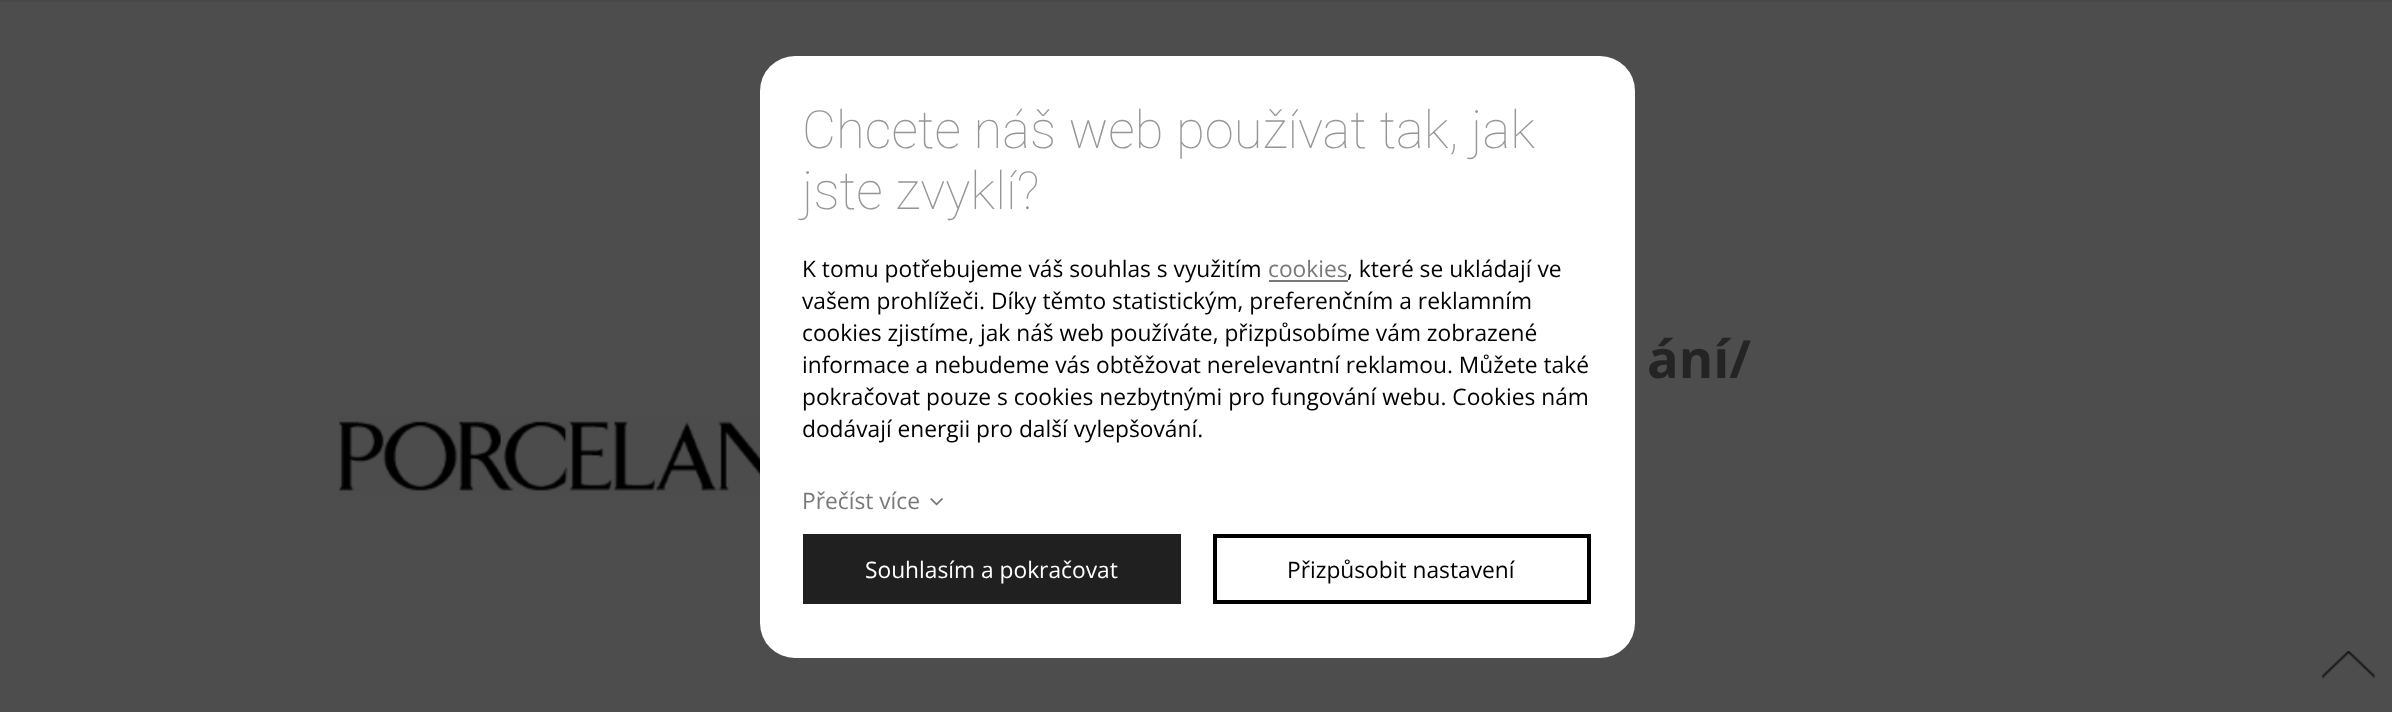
(async () => {
    const canvas = document.querySelector("canvas");
    canvas.width = 2392;
    canvas.height = 712;
    const context = canvas.getContext("2d");
    context.miterLimit = 4;
    context.fontKerning = "normal";
    function write(s, x, y, font, color) {
        context.font = font;
        context.fillStyle = color;
        context.fillText(s, x, y);
    }
    function block(x, y, w, h, color) {
        context.fillStyle = color;
        context.fillRect(x, y, w, h);
    }
    function card(x, y, w, h, r, color) {
        context.fillStyle = color;
        context.beginPath();
        context.roundRect(x, y, w, h, r);
        context.fill();
    }
    async function photo(src, x, y, w, h) {
        const img = new Image();
        img.src = src;
        await img.decode();
        context.drawImage(img, x, y, w, h);
    }

    block(0, 0, 2392, 712, "rgb(77, 77, 77)");
    card(760, 56, 875, 602, 35, "rgb(255, 255, 255)");
    write("Chcete náš web používat tak, jak", 802, 148, "100 52.5px Roboto", "rgb(150, 150, 150)");
    write("jste zvyklí?", 802, 209, "100 52.5px Roboto", "rgb(150, 150, 150)");
    write("K tomu potřebujeme váš souhlas s využitím", 802, 277, "22.75px Open Sans", "rgb(0, 0, 0)");
    write("cookies", 1268, 277, "22.75px Open Sans", "rgb(121, 121, 121)");
    block(1269, 280, 79, 2, "rgb(121, 121, 121)");
    write(", které se ukládají ve", 1347, 277, "22.75px Open Sans", "rgb(0, 0, 0)");
    write("vašem prohlížeči. Díky těmto statistickým, preferenčním a reklamním", 802, 309, "22.75px Open Sans", "rgb(0, 0, 0)");
    write("cookies zjistíme, jak náš web používáte, přizpůsobíme vám zobrazené", 802, 341, "22.75px Open Sans", "rgb(0, 0, 0)");
    write("informace a nebudeme vás obtěžovat nerelevantní reklamou. Můžete také", 802, 373, "22.75px Open Sans", "rgb(0, 0, 0)");
    write("pokračovat pouze s cookies nezbytnými pro fungování webu. Cookies nám", 802, 405, "22.75px Open Sans", "rgb(0, 0, 0)");
    write("dodávají energii pro další vylepšování.", 802, 437, "22.75px Open Sans", "rgb(0, 0, 0)");
    write("Přečíst více", 802, 509, "22.75px Open Sans", "rgb(121, 121, 121)");
    await photo("media/1.png", 930, 498, 13, 8);
    block(803, 534, 378, 70, "rgb(32, 32, 32)");
    write("Souhlasím a pokračovat", 865, 578, "22.75px Open Sans", "rgb(255, 255, 255)");
    context.strokeStyle = "rgb(0, 0, 0)";
    context.lineWidth = 4;
    context.strokeRect(1215, 536, 374, 66);
    write("Přizpůsobit nastavení", 1287, 578, "22.75px Open Sans", "rgb(0, 0, 0)");
    block(0, 0, 2392, 2, "rgb(71, 71, 70)");
    write("ání/", 1647, 378, "bold 52.5px Open Sans", "rgb(36, 36, 36)");
    await photo("media/2.png", 338, 415, 422, 80);
    await photo("media/3.png", 2322, 651, 53, 28);
})();
